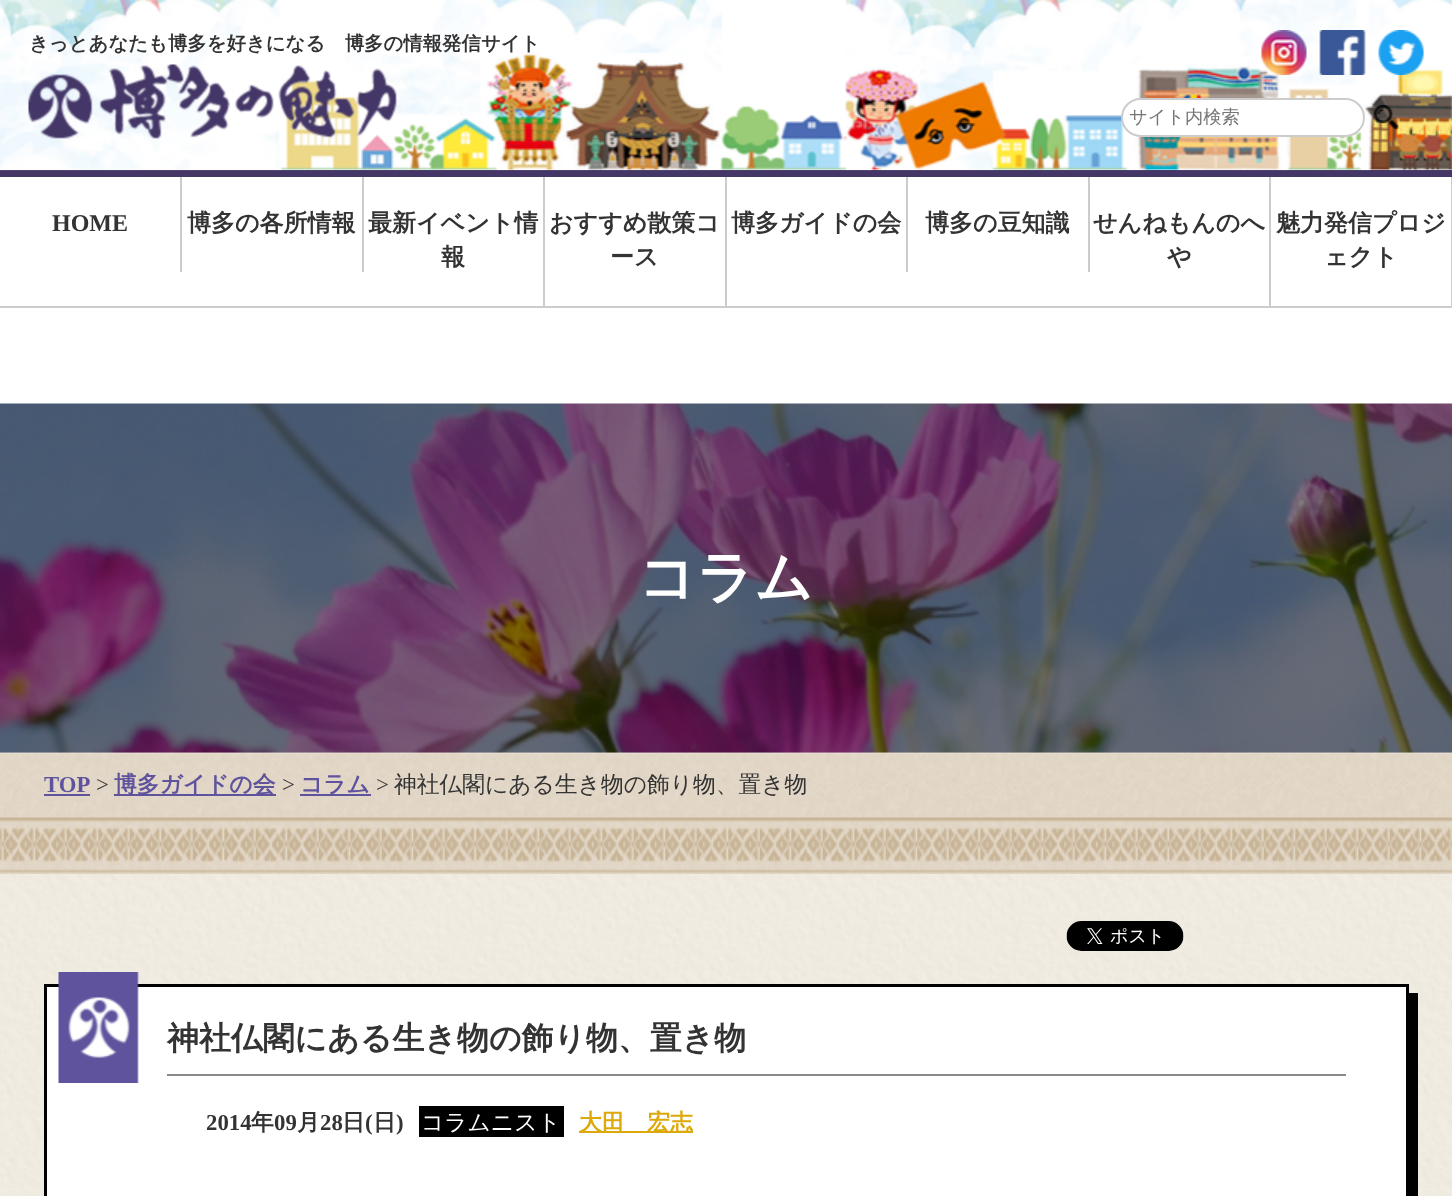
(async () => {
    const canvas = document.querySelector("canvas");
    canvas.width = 1452;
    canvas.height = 1196;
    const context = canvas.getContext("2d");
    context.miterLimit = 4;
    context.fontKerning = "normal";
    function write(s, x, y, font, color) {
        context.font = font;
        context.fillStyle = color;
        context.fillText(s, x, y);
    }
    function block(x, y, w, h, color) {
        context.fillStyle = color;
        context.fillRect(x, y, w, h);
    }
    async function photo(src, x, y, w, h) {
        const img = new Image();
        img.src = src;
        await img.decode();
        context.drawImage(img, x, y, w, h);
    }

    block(0, 0, 1452, 1196, "rgb(255, 255, 255)");
    block(0, 170, 1452, 7, "rgb(68, 55, 104)");
    await photo("media/1.png", 0, 0, 1452, 171);
    write("きっとあなたも博多を好きになる　博多の情報発信サイト", 29, 50, "bold 19.4px WenQuanYi Zen Hei", "rgb(51, 51, 51)");
    await photo("media/2.png", 28, 64, 369, 75);
    await photo("media/3.png", 1261, 30, 46, 45);
    await photo("media/4.png", 1319, 30, 47, 45);
    await photo("media/5.png", 1378, 30, 46, 45);
    context.fillStyle = "rgb(255, 255, 255)";
    context.beginPath();
    context.roundRect(1122, 99, 242, 37, 18.5);
    context.fill();
    context.strokeStyle = "rgb(204, 204, 204)";
    context.lineWidth = 2;
    context.stroke();
    write("サイト内検索", 1129, 123, "500 18.25px WenQuanYi Zen Hei", "rgb(117, 117, 117)");
    await photo("media/6.png", 1373, 105, 26, 25);
    block(0, 306, 1452, 2, "rgb(204, 204, 204)");
    block(180, 177, 2, 95, "rgb(204, 204, 204)");
    write("HOME", 52, 231, "bold 24px Liberation Serif", "rgb(51, 51, 51)");
    block(362, 177, 2, 95, "rgb(204, 204, 204)");
    write("博多の各所情報", 187, 231, "bold 24px WenQuanYi Zen Hei", "rgb(51, 51, 51)");
    block(543, 177, 2, 129, "rgb(204, 204, 204)");
    write("最新イベント情", 368, 231, "bold 24px WenQuanYi Zen Hei", "rgb(51, 51, 51)");
    write("報", 441, 265, "bold 24px WenQuanYi Zen Hei", "rgb(51, 51, 51)");
    block(725, 177, 2, 129, "rgb(204, 204, 204)");
    write("おすすめ散策コ", 549, 231, "bold 24px WenQuanYi Zen Hei", "rgb(51, 51, 51)");
    write("ース", 610, 265, "bold 24px WenQuanYi Zen Hei", "rgb(51, 51, 51)");
    block(906, 177, 2, 95, "rgb(204, 204, 204)");
    write("博多ガイドの会", 731, 231, "bold 24px WenQuanYi Zen Hei", "rgb(51, 51, 51)");
    block(1088, 177, 2, 95, "rgb(204, 204, 204)");
    write("博多の豆知識", 925, 231, "bold 24px WenQuanYi Zen Hei", "rgb(51, 51, 51)");
    block(1269, 177, 2, 129, "rgb(204, 204, 204)");
    write("せんねもんのへ", 1093, 231, "bold 24px WenQuanYi Zen Hei", "rgb(51, 51, 51)");
    write("や", 1167, 265, "bold 24px WenQuanYi Zen Hei", "rgb(51, 51, 51)");
    block(1451, 177, 1, 129, "rgb(204, 204, 204)");
    write("魅力発信プロジ", 1276, 231, "bold 24px WenQuanYi Zen Hei", "rgb(51, 51, 51)");
    write("ェクト", 1324, 265, "bold 24px WenQuanYi Zen Hei", "rgb(51, 51, 51)");
    await photo("media/7.png", 0, 403, 1452, 350);
    write("コラム", 638, 597, "bold 57px WenQuanYi Zen Hei", "rgb(255, 255, 255)");
    await photo("media/8.png", 0, 752, 1452, 444);
    await photo("media/9.png", 0, 752, 1452, 122);
    write("TOP", 44, 792, "bold 22.75px Liberation Serif", "rgb(95, 83, 157)");
    block(44, 794, 46, 2, "rgb(95, 83, 157)");
    write(">", 96, 792, "22.75px Liberation Serif", "rgb(51, 51, 51)");
    block(114, 794, 162, 2, "rgb(95, 83, 157)");
    write("博多ガイドの会", 114, 792, "bold 22.75px WenQuanYi Zen Hei", "rgb(95, 83, 157)");
    write(">", 282, 792, "22.75px Liberation Serif", "rgb(51, 51, 51)");
    block(300, 794, 71, 2, "rgb(95, 83, 157)");
    write("コラム", 300, 792, "bold 22.75px WenQuanYi Zen Hei", "rgb(95, 83, 157)");
    write(">", 376, 792, "22.75px Liberation Serif", "rgb(51, 51, 51)");
    write("神社仏閣にある生き物の飾り物、置き物", 394, 792, "500 22.75px WenQuanYi Zen Hei", "rgb(51, 51, 51)");
    await photo("media/10.png", 1066, 921, 118, 30);
    context.fillStyle = "rgb(0, 0, 0)";
    context.beginPath();
    context.moveTo(53, 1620);
    context.lineTo(53, 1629);
    context.lineTo(1418, 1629);
    context.lineTo(1418, 993);
    context.lineTo(1408, 993);
    context.lineTo(1408, 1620);
    context.closePath();
    context.fill();
    context.fillStyle = "rgb(255, 255, 255)";
    context.beginPath();
    context.rect(45.5, 985.5, 1362, 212);
    context.fill();
    context.strokeStyle = "rgb(0, 0, 0)";
    context.lineWidth = 3;
    context.stroke();
    await photo("media/11.png", 58, 972, 81, 111);
    block(167, 1074, 1179, 2, "rgb(137, 137, 137)");
    write("神社仏閣にある生き物の飾り物、置き物", 167, 1049, "bold 31.9px WenQuanYi Zen Hei", "rgb(51, 51, 51)");
    write("2014", 206, 1130, "bold 22.75px Liberation Serif", "rgb(51, 51, 51)");
    write("年", 251, 1130, "bold 22.75px WenQuanYi Zen Hei", "rgb(51, 51, 51)");
    write("09", 274, 1130, "bold 22.75px Liberation Serif", "rgb(51, 51, 51)");
    write("月", 297, 1130, "bold 22.75px WenQuanYi Zen Hei", "rgb(51, 51, 51)");
    write("28", 320, 1130, "bold 22.75px Liberation Serif", "rgb(51, 51, 51)");
    write("日", 342, 1130, "bold 22.75px WenQuanYi Zen Hei", "rgb(51, 51, 51)");
    write("(", 365, 1130, "bold 22.75px Liberation Serif", "rgb(51, 51, 51)");
    write("日", 373, 1130, "bold 22.75px WenQuanYi Zen Hei", "rgb(51, 51, 51)");
    write(")", 396, 1130, "bold 22.75px Liberation Serif", "rgb(51, 51, 51)");
    block(419, 1106, 145, 31, "rgb(0, 0, 0)");
    write("コラムニスト", 421, 1130, "500 22.75px WenQuanYi Zen Hei", "rgb(255, 255, 255)");
    block(579, 1131, 114, 2, "rgb(221, 169, 10)");
    write("大田　宏志", 579, 1130, "bold 22.75px WenQuanYi Zen Hei", "rgb(221, 169, 10)");
})();
